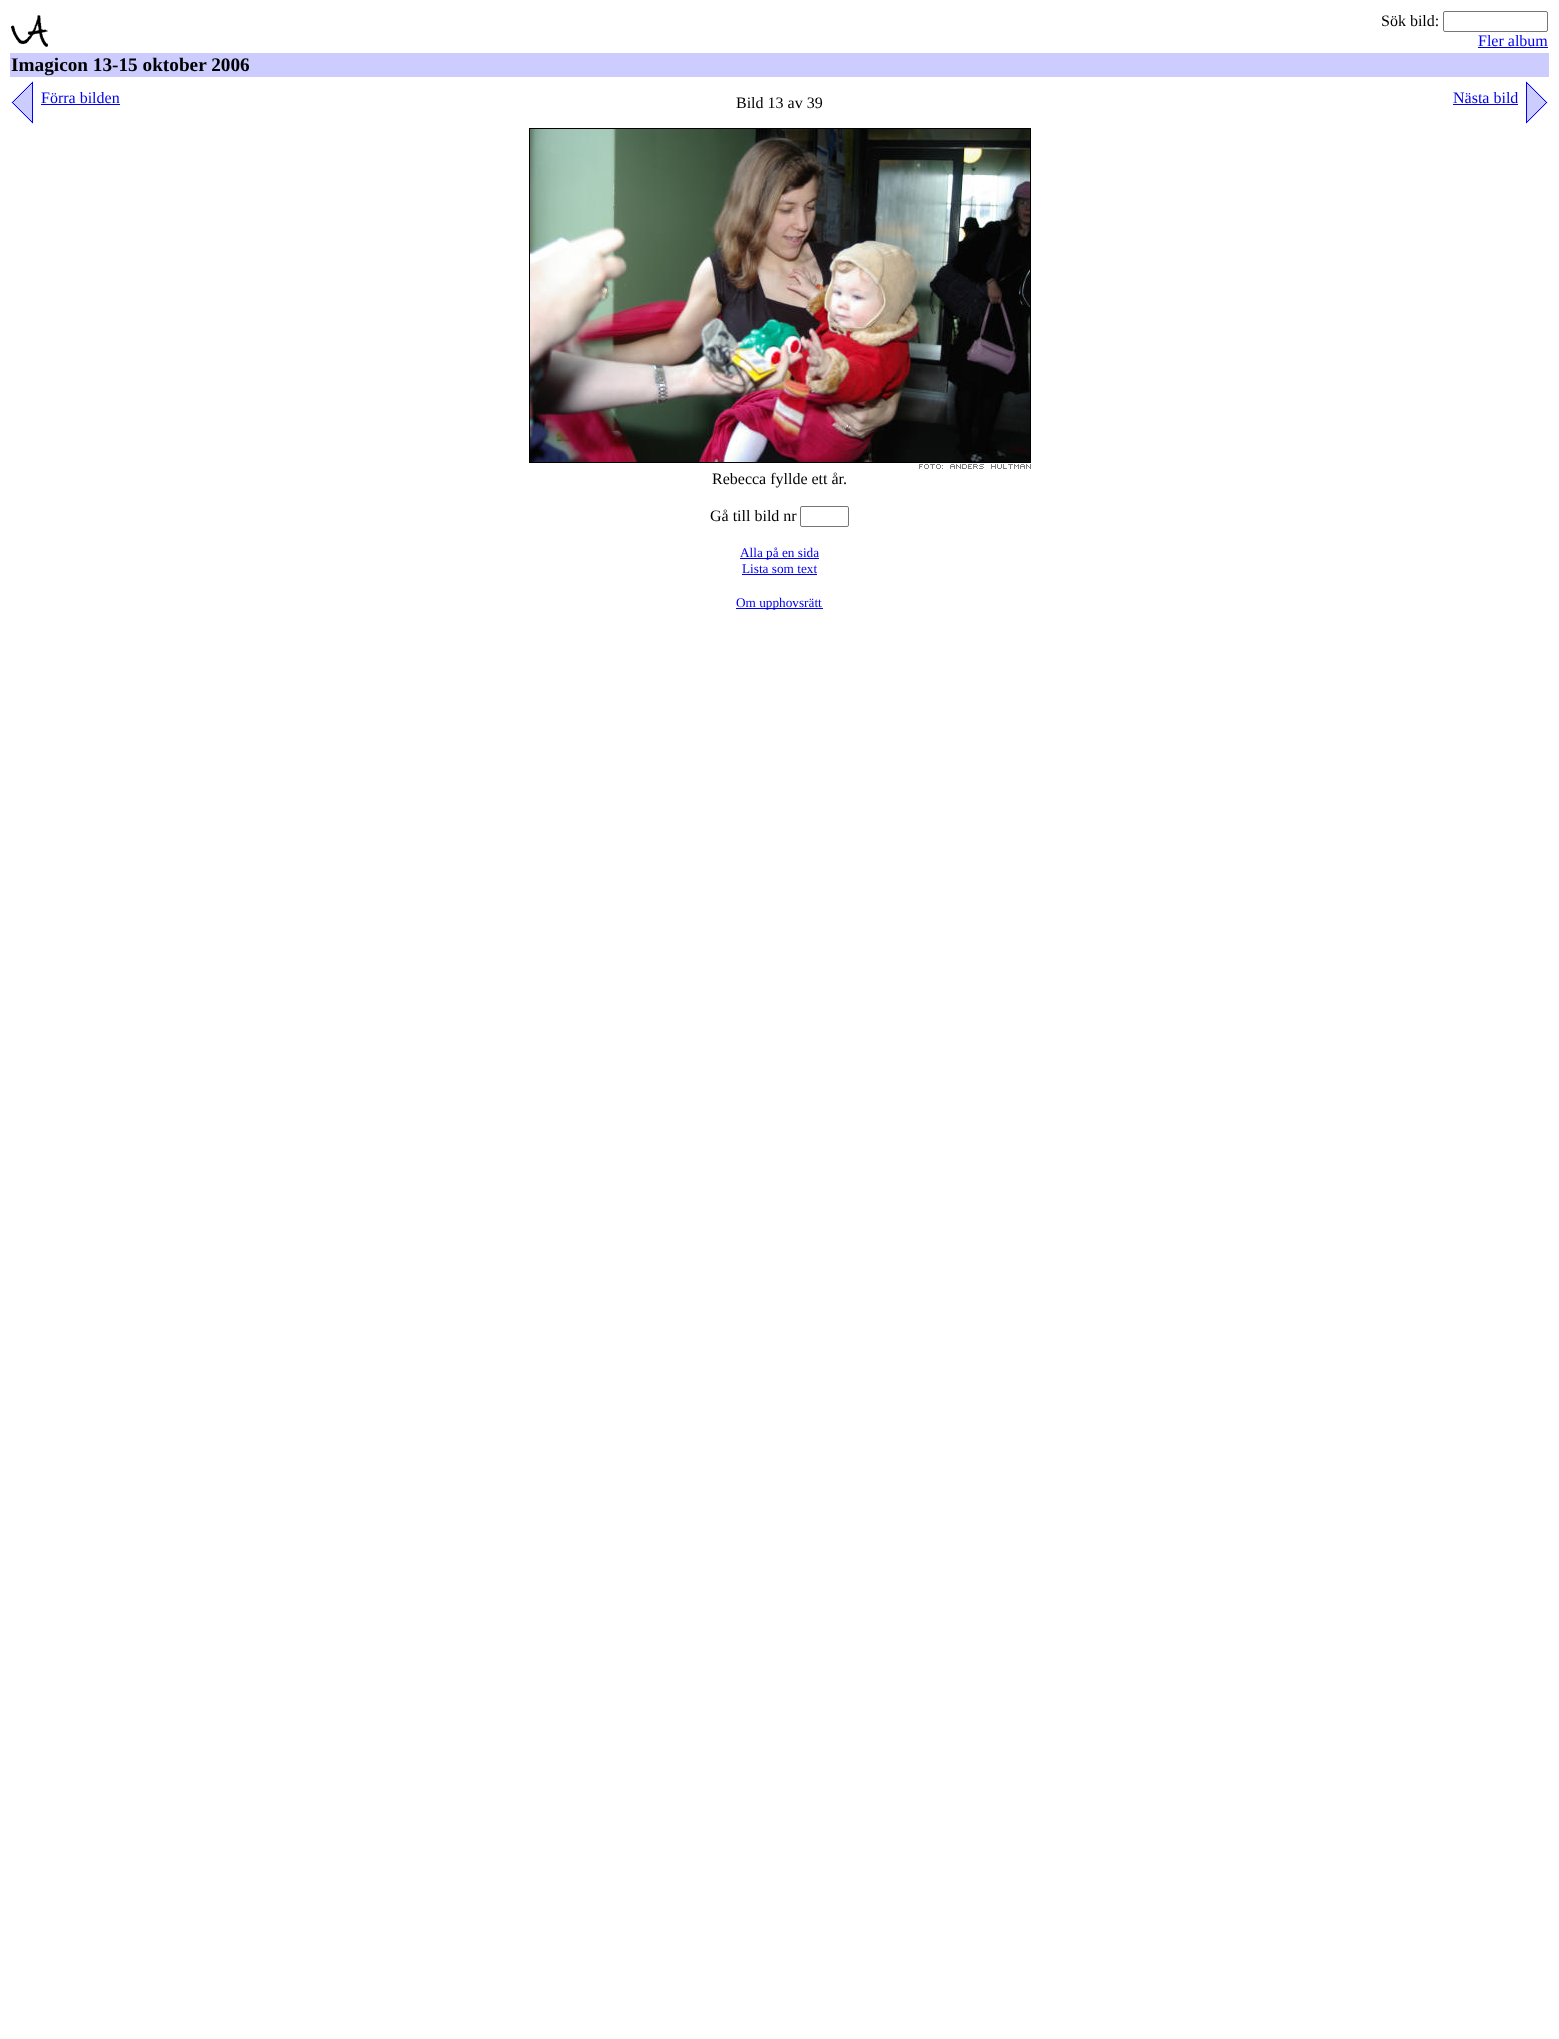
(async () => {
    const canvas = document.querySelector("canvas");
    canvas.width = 1559;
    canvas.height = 2039;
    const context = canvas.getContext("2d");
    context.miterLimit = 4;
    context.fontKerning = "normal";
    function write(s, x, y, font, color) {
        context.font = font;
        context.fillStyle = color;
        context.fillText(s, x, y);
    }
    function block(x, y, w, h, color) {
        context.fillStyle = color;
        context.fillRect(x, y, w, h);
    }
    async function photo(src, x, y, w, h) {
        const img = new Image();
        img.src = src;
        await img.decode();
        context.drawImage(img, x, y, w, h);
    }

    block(0, 0, 1559, 2039, "rgb(255, 255, 255)");
    await photo("media/1.png", 11, 15, 37, 32);
    write("Sök bild:", 1381, 26, "16px Liberation Serif", "rgb(0, 0, 0)");
    context.beginPath();
    context.roundRect(1443.5, 11.5, 104, 20, 1.5);
    context.strokeStyle = "rgb(118, 118, 118)";
    context.stroke();
    write("Fler album", 1478, 46, "16px Liberation Serif", "rgb(0, 0, 238)");
    block(1478, 47, 70, 1, "rgb(0, 0, 238)");
    block(10, 53, 1539, 24, "rgb(204, 204, 255)");
    write("Imagicon 13-15 oktober 2006", 11, 71, "bold 19.25px Liberation Serif", "rgb(0, 0, 0)");
    await photo("media/2.png", 11, 81, 22, 43);
    write("Förra bilden", 41, 103, "16px Liberation Serif", "rgb(0, 0, 238)");
    block(41, 104, 79, 1, "rgb(0, 0, 238)");
    write("Bild 13 av 39", 736, 108, "16px Liberation Serif", "rgb(0, 0, 0)");
    write("Nästa bild", 1453, 103, "16px Liberation Serif", "rgb(0, 0, 238)");
    block(1453, 104, 65, 1, "rgb(0, 0, 238)");
    await photo("media/3.png", 1526, 81, 22, 43);
    context.strokeStyle = "rgb(0, 0, 0)";
    context.strokeRect(529.5, 128.5, 501, 334);
    await photo("media/4.png", 530, 129, 500, 333);
    await photo("media/5.png", 919, 464, 112, 5);
    write("Rebecca fyllde ett år.", 712, 484, "16px Liberation Serif", "rgb(0, 0, 0)");
    write("Gå till bild nr", 710, 521, "16px Liberation Serif", "rgb(0, 0, 0)");
    context.beginPath();
    context.roundRect(800.5, 506.5, 48, 20, 1.5);
    context.strokeStyle = "rgb(118, 118, 118)";
    context.stroke();
    block(740, 558, 79, 1, "rgb(0, 0, 238)");
    write("Alla på en sida", 740, 557, "13.25px Liberation Serif", "rgb(0, 0, 238)");
    write("Lista som text", 742, 573, "13.25px Liberation Serif", "rgb(0, 0, 238)");
    block(742, 574, 75, 1, "rgb(0, 0, 238)");
    block(736, 608, 87, 1, "rgb(0, 0, 238)");
    write("Om upphovsrätt", 736, 607, "13.25px Liberation Serif", "rgb(0, 0, 238)");
})();
